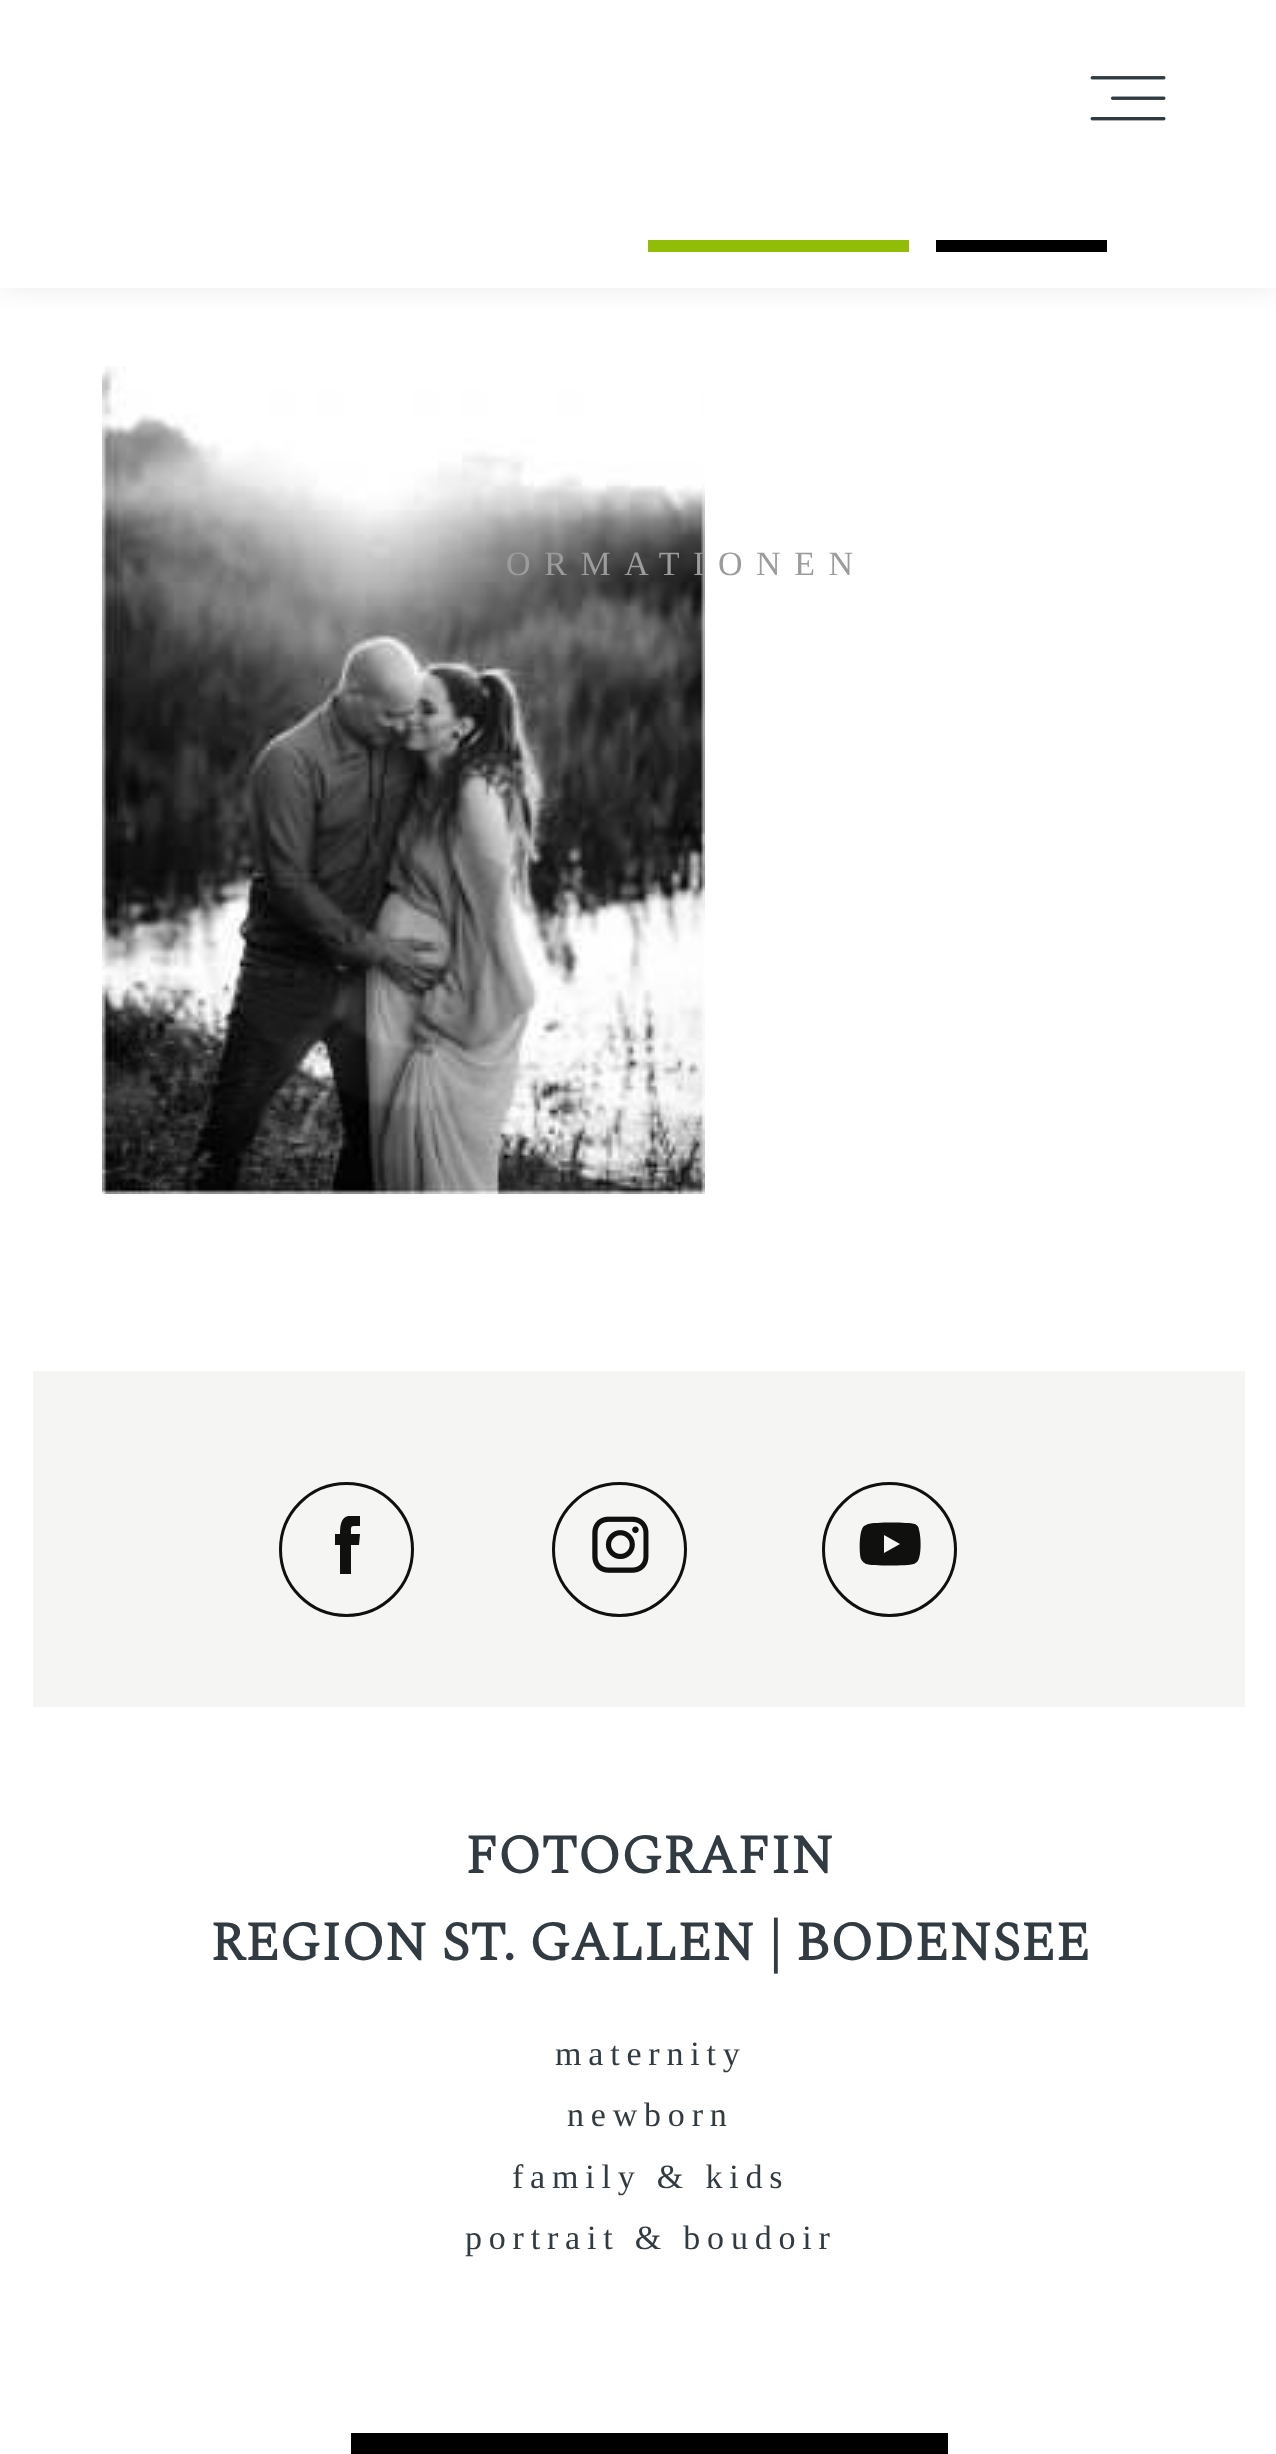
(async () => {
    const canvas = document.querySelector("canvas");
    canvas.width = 1276;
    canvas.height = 2454;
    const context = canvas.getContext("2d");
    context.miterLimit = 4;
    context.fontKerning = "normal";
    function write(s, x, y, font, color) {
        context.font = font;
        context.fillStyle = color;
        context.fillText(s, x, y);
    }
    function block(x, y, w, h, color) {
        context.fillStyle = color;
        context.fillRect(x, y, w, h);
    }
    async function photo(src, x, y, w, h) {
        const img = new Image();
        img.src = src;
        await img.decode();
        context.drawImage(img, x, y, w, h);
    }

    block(0, 0, 1276, 2454, "rgb(255, 255, 255)");
    block(33, 1371, 1212, 336, "rgb(245, 246, 244)");
    context.save();
    context.beginPath();
    context.rect(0, 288, 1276, 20);
    context.clip();
    context.fillStyle = "rgba(172, 171, 171, 0.3)";
    context.filter = "blur(15px)";
    context.beginPath();
    context.rect(0, -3, 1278, 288);
    context.fill();
    context.filter = "none";
    context.restore();
    block(648, 240, 261, 12, "rgb(145, 189, 9)");
    block(936, 240, 171, 12, "rgb(0, 0, 0)");
    await photo("media/2.png", 102, 366, 603, 828);
    context.letterSpacing = "13.6px";
    write("ORMATIONEN", 506, 575, "34px Liberation Serif", "rgb(156, 156, 156)");
    await photo("media/1.png", 1090, 76, 76, 45);
    context.beginPath();
    context.arc(346.5, 1549.5, 66, 0, Math.PI * 2);
    context.strokeStyle = "rgb(16, 16, 15)";
    context.lineWidth = 3;
    context.stroke();
    context.fillStyle = "rgb(16, 16, 15)";
    context.beginPath();
    context.moveTo(360, 1534);
    context.lineTo(351, 1534);
    context.bezierCurveTo(351, 1525, 350, 1526, 360, 1526);
    context.lineTo(360, 1516);
    context.lineTo(348, 1516);
    context.bezierCurveTo(340, 1518, 340, 1528, 340, 1534);
    context.lineTo(335, 1534);
    context.lineTo(335, 1545);
    context.lineTo(340, 1545);
    context.lineTo(340, 1574);
    context.lineTo(351, 1574);
    context.lineTo(351, 1545);
    context.lineTo(359, 1545);
    context.closePath();
    context.fill();
    context.beginPath();
    context.arc(619.5, 1549.5, 66, 0, Math.PI * 2);
    context.stroke();
    await photo("media/3.png", 592, 1516, 57, 57);
    context.beginPath();
    context.arc(889.5, 1549.5, 66, 0, Math.PI * 2);
    context.stroke();
    context.beginPath();
    context.moveTo(919, 1530);
    context.bezierCurveTo(919, 1527, 917, 1525, 915, 1524);
    context.bezierCurveTo(908, 1522, 875, 1522, 868, 1524);
    context.lineTo(864, 1526);
    context.bezierCurveTo(859, 1530, 859, 1552, 861, 1559);
    context.bezierCurveTo(862, 1561, 864, 1563, 866, 1564);
    context.bezierCurveTo(872, 1566, 907, 1566, 914, 1564);
    context.lineTo(917, 1562);
    context.bezierCurveTo(922, 1557, 921, 1536, 919, 1530);
    context.closePath();
    context.moveTo(884, 1553);
    context.lineTo(884, 1535);
    context.lineTo(900, 1544);
    context.closePath();
    context.fill();
    context.letterSpacing = "0px";
    write("FOTOGRAFIN", 465, 1873, "bold 54.5px Spectral", "rgb(49, 59, 65)");
    write("REGION ST. GALLEN | BODENSEE", 210, 1960, "bold 54.5px Spectral", "rgb(49, 59, 65)");
    context.letterSpacing = "6.8px";
    write("maternity", 555, 2065, "34px Liberation Serif", "rgb(49, 59, 65)");
    write("newborn", 567, 2126, "34px Liberation Serif", "rgb(49, 59, 65)");
    write("family & kids", 512, 2188, "34px Liberation Serif", "rgb(49, 59, 65)");
    write("portrait & boudoir", 465, 2249, "34px Liberation Serif", "rgb(49, 59, 65)");
    block(351, 2433, 597, 21, "rgb(0, 0, 0)");
})();
